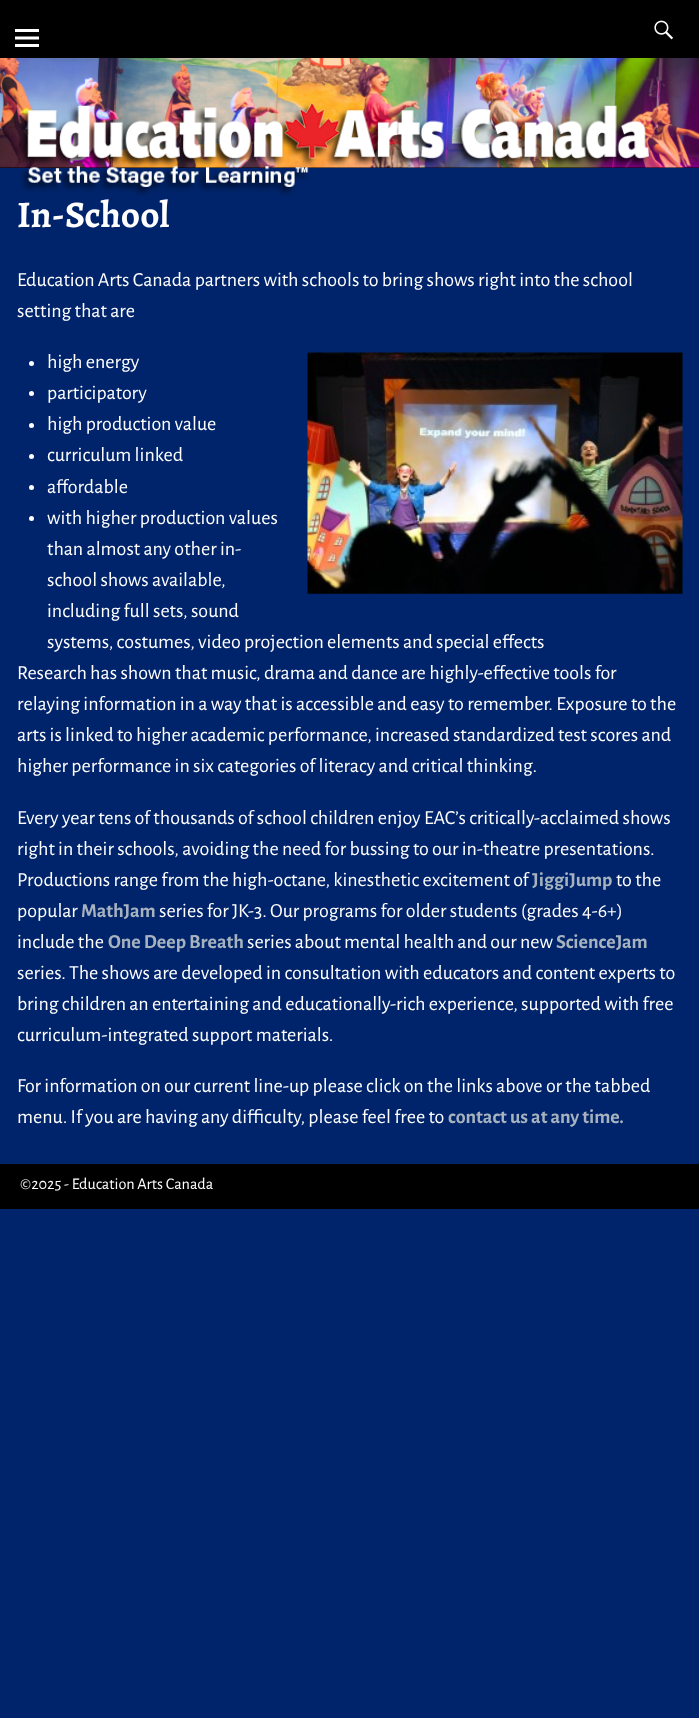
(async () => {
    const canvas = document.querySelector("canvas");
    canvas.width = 699;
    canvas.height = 1718;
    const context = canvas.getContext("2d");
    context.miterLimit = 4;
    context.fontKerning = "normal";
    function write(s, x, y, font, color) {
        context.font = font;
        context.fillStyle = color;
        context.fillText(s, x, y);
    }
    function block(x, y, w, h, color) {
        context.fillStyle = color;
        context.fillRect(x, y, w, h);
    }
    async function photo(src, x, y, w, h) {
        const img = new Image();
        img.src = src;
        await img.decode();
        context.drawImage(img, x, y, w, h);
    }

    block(0, 0, 699, 1718, "rgb(0, 36, 107)");
    block(0, 167, 699, 1, "rgb(0, 0, 0)");
    block(0, 0, 699, 58, "rgb(0, 0, 0)");
    await photo("media/1.png", 15, 29, 24, 18);
    await photo("media/2.png", 654, 20, 19, 20);
    await photo("media/3.png", 0, 58, 699, 110);
    await photo("media/4.png", 19, 102, 631, 94);
    write("In-School", 17, 227, "bold 37.5px Alegreya", "rgb(255, 255, 255)");
    write("Education Arts Canada partners with schools to bring shows right into the school", 17, 286, "20px Alegreya Sans", "rgb(255, 255, 255)");
    write("setting that are", 17, 317, "20px Alegreya Sans", "rgb(255, 255, 255)");
    context.beginPath();
    context.arc(31.5, 363.5, 2.5, 0, Math.PI * 2);
    context.fill();
    write("high energy", 47, 368, "20px Alegreya Sans", "rgb(255, 255, 255)");
    await photo("media/5.png", 307, 352, 376, 242);
    context.beginPath();
    context.arc(31.5, 393.5, 2.5, 0, Math.PI * 2);
    context.fill();
    write("participatory", 47, 399, "20px Alegreya Sans", "rgb(255, 255, 255)");
    context.beginPath();
    context.arc(31.5, 425.5, 2.5, 0, Math.PI * 2);
    context.fill();
    write("high production value", 47, 430, "20px Alegreya Sans", "rgb(255, 255, 255)");
    context.beginPath();
    context.arc(31.5, 456.5, 2.5, 0, Math.PI * 2);
    context.fill();
    write("curriculum linked", 47, 461, "20px Alegreya Sans", "rgb(255, 255, 255)");
    context.beginPath();
    context.arc(31.5, 487.5, 2.5, 0, Math.PI * 2);
    context.fill();
    write("affordable", 47, 493, "20px Alegreya Sans", "rgb(255, 255, 255)");
    context.beginPath();
    context.arc(31.5, 518.5, 2.5, 0, Math.PI * 2);
    context.fill();
    write("with higher production values", 47, 524, "20px Alegreya Sans", "rgb(255, 255, 255)");
    write("than almost any other in-", 47, 555, "20px Alegreya Sans", "rgb(255, 255, 255)");
    write("school shows available,", 47, 586, "20px Alegreya Sans", "rgb(255, 255, 255)");
    write("including full sets, sound", 47, 617, "20px Alegreya Sans", "rgb(255, 255, 255)");
    write("systems, costumes, video projection elements and special effects", 47, 648, "20px Alegreya Sans", "rgb(255, 255, 255)");
    write("Research has shown that music, drama and dance are highly-effective tools for", 17, 679, "20px Alegreya Sans", "rgb(255, 255, 255)");
    write("relaying information in a way that is accessible and easy to remember. Exposure to the", 17, 710, "20px Alegreya Sans", "rgb(255, 255, 255)");
    write("arts is linked to higher academic performance, increased standardized test scores and", 17, 741, "20px Alegreya Sans", "rgb(255, 255, 255)");
    write("higher performance in six categories of literacy and critical thinking.", 17, 772, "20px Alegreya Sans", "rgb(255, 255, 255)");
    write("Every year tens of thousands of school children enjoy EAC’s critically-acclaimed shows", 17, 824, "20px Alegreya Sans", "rgb(255, 255, 255)");
    write("right in their schools, avoiding the need for bussing to our in-theatre presentations.", 17, 855, "20px Alegreya Sans", "rgb(255, 255, 255)");
    write("Productions range from the high-octane, kinesthetic excitement of", 17, 886, "20px Alegreya Sans", "rgb(255, 255, 255)");
    write("JiggiJump", 532, 886, "bold 20px Alegreya Sans", "rgb(166, 179, 191)");
    write("to the", 616, 886, "20px Alegreya Sans", "rgb(255, 255, 255)");
    write("popular", 17, 917, "20px Alegreya Sans", "rgb(255, 255, 255)");
    write("MathJam", 81, 917, "bold 20px Alegreya Sans", "rgb(166, 179, 191)");
    write("series for JK-3. Our programs for older students (grades 4-6+)", 159, 917, "20px Alegreya Sans", "rgb(255, 255, 255)");
    write("include the", 17, 948, "20px Alegreya Sans", "rgb(255, 255, 255)");
    write("One Deep Breath", 108, 948, "bold 20px Alegreya Sans", "rgb(166, 179, 191)");
    write("series about mental health and our new", 247, 948, "20px Alegreya Sans", "rgb(255, 255, 255)");
    write("ScienceJam", 556, 948, "bold 20px Alegreya Sans", "rgb(166, 179, 191)");
    write("series. The shows are developed in consultation with educators and content experts to", 17, 979, "20px Alegreya Sans", "rgb(255, 255, 255)");
    write("bring children an entertaining and educationally-rich experience, supported with free", 17, 1010, "20px Alegreya Sans", "rgb(255, 255, 255)");
    write("curriculum-integrated support materials.", 17, 1041, "20px Alegreya Sans", "rgb(255, 255, 255)");
    write("For information on our current line-up please click on the links above or the tabbed", 17, 1092, "20px Alegreya Sans", "rgb(255, 255, 255)");
    write("menu. If you are having any difficulty, please feel free to", 17, 1123, "20px Alegreya Sans", "rgb(255, 255, 255)");
    write("contact us at any time.", 448, 1123, "bold 20px Alegreya Sans", "rgb(166, 179, 191)");
    block(0, 1164, 699, 45, "rgb(0, 0, 0)");
    write("©2025 - Education Arts Canada", 20, 1189, "16.25px Alegreya Sans", "rgb(255, 255, 255)");
})();
